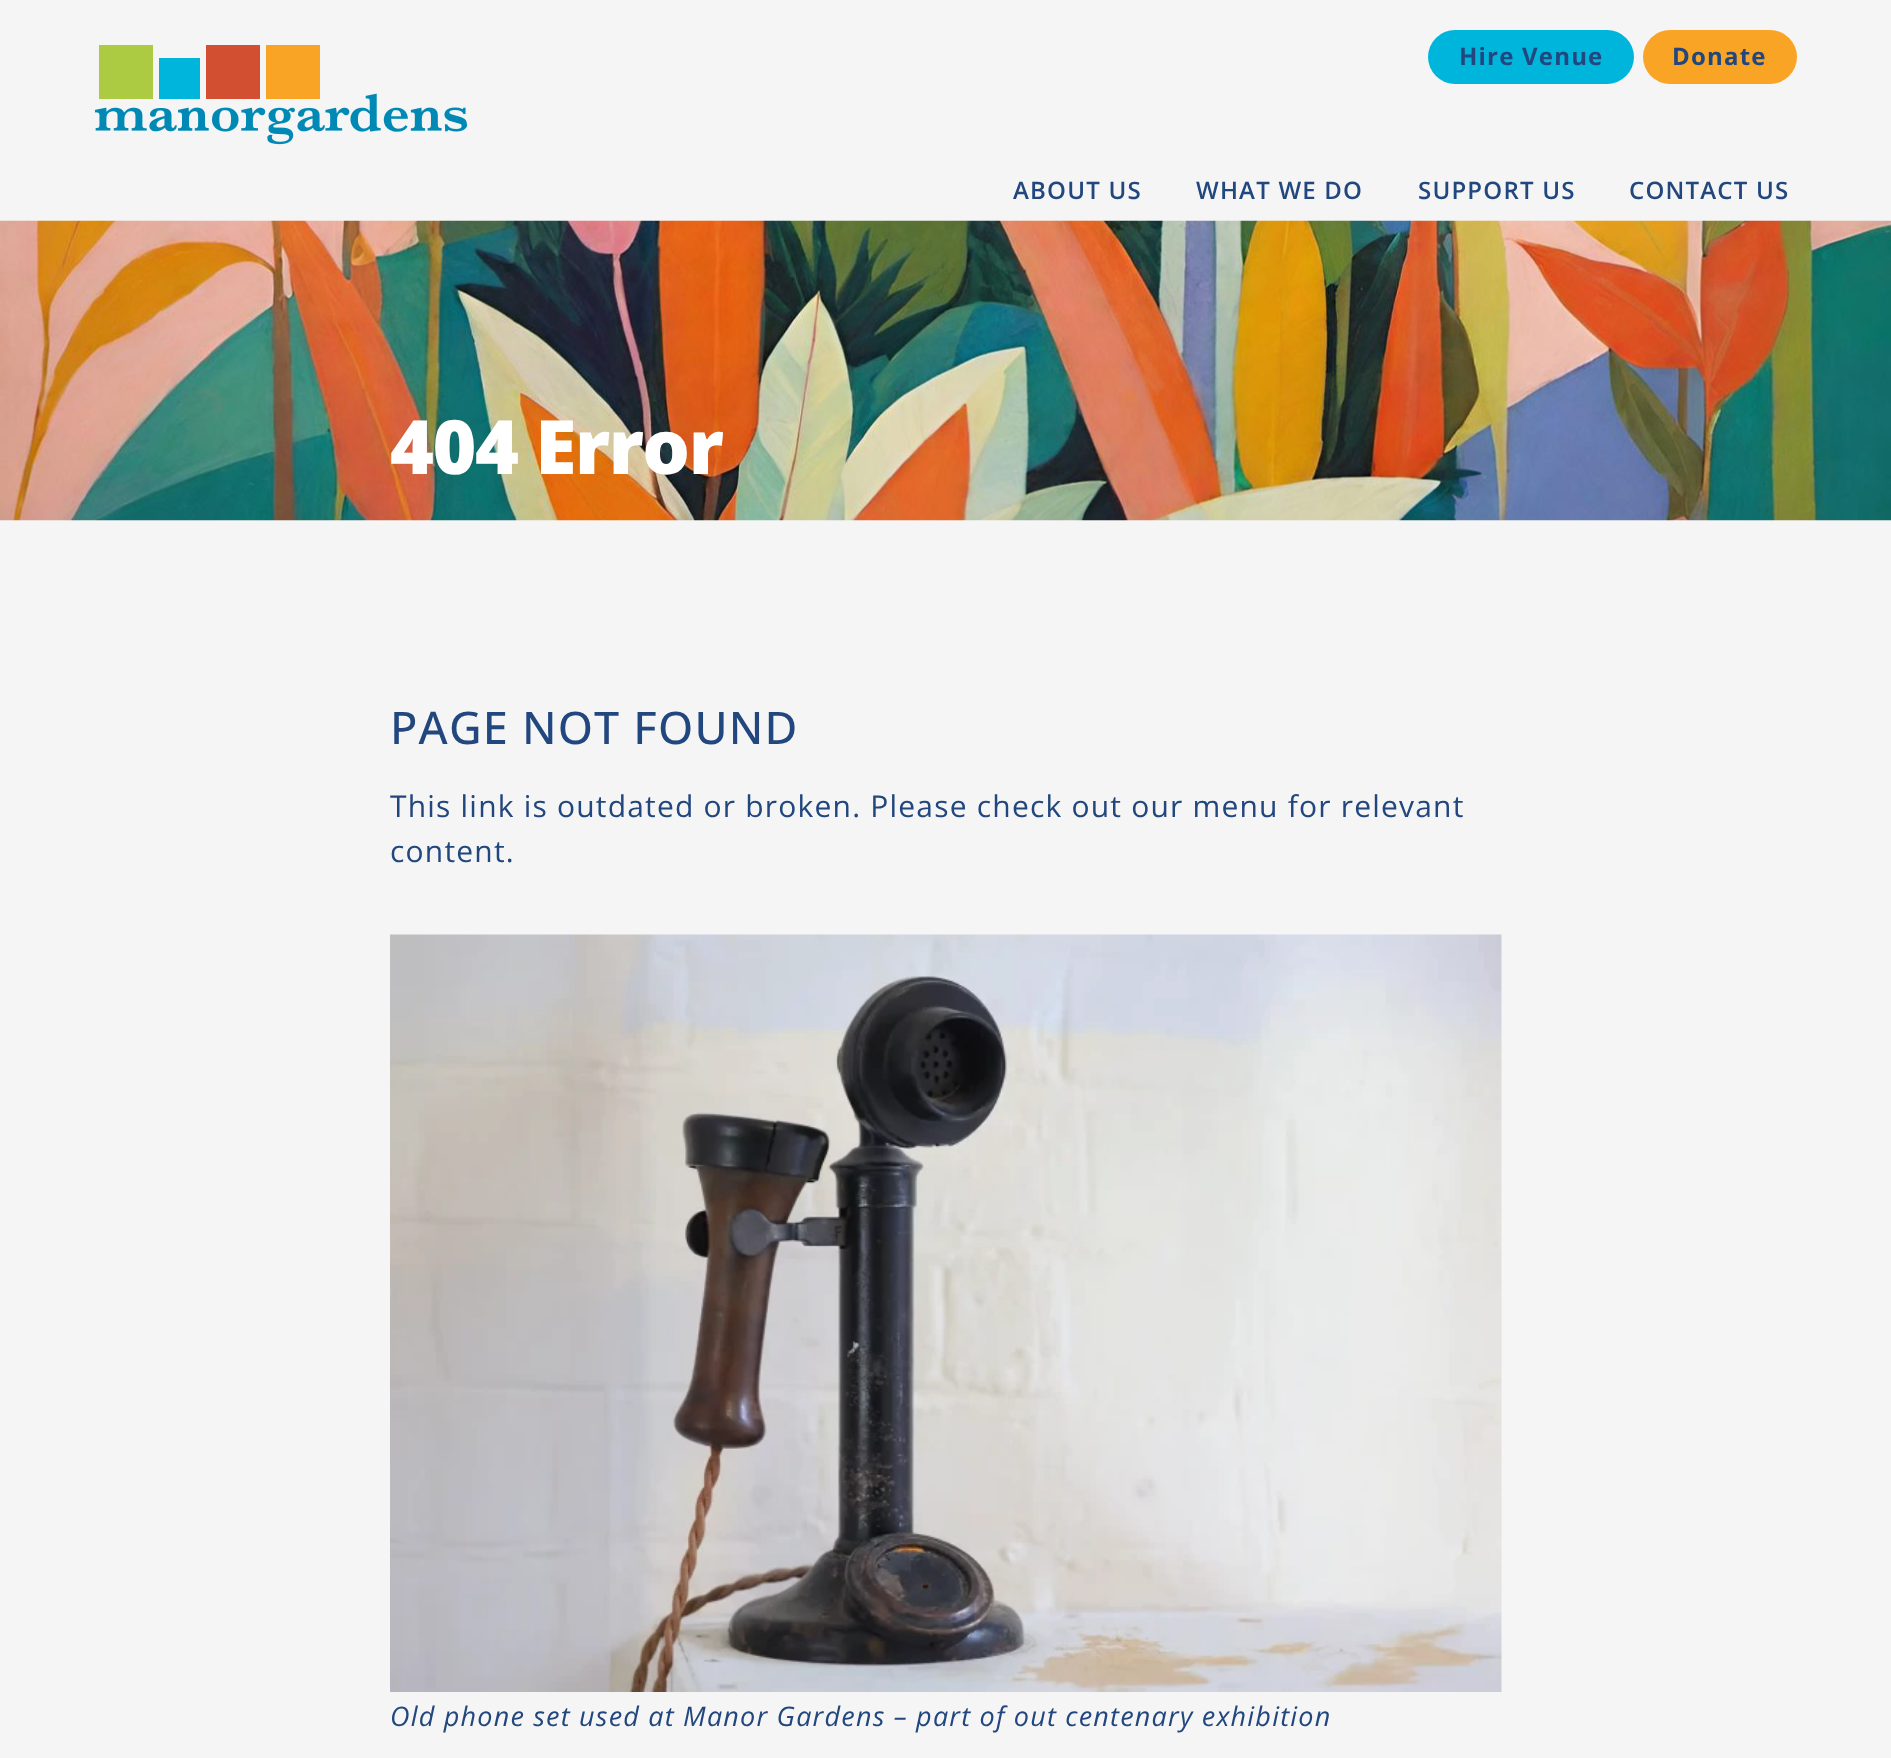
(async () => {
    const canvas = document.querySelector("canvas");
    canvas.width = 1891;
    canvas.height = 1758;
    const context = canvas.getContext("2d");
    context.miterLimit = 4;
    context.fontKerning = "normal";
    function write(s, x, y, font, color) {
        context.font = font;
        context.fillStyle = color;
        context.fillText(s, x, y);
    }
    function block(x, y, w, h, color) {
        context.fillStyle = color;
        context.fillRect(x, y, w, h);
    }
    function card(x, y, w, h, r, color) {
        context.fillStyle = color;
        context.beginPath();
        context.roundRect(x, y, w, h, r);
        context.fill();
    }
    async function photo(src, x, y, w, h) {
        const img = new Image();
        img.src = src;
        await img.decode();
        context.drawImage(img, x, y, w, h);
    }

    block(0, 0, 1891, 1758, "rgb(245, 245, 245)");
    await photo("media/1.png", 95, 45, 373, 100);
    card(1428, 30, 206, 54, 27, "rgb(0, 181, 220)");
    context.letterSpacing = "1.2px";
    write("Hire Venue", 1459, 65, "bold 24px Open Sans", "rgb(33, 71, 126)");
    card(1643, 30, 154, 54, 27, "rgb(249, 164, 36)");
    write("Donate", 1672, 65, "bold 24px Open Sans", "rgb(33, 71, 126)");
    write("ABOUT US", 1013, 199, "600 24px Open Sans", "rgb(33, 71, 126)");
    write("WHAT WE DO", 1196, 199, "600 24px Open Sans", "rgb(33, 71, 126)");
    write("SUPPORT US", 1418, 199, "600 24px Open Sans", "rgb(33, 71, 126)");
    write("CONTACT US", 1629, 199, "600 24px Open Sans", "rgb(33, 71, 126)");
    await photo("media/2.png", 0, 220, 1891, 301);
    context.letterSpacing = "-1.5px";
    write("404 Error", 390, 474, "800 75px Open Sans", "rgb(255, 255, 255)");
    context.letterSpacing = "1.2px";
    write("PAGE NOT FOUND", 390, 744, "500 45px Open Sans", "rgb(33, 71, 126)");
    write("This link is outdated or broken. Please check out our menu for relevant", 390, 817, "30px Open Sans", "rgb(33, 71, 126)");
    write("content.", 390, 862, "30px Open Sans", "rgb(33, 71, 126)");
    await photo("media/3.png", 390, 934, 1112, 758);
    write("Old phone set used at Manor Gardens – part of out centenary exhibition", 390, 1726, "italic 27px Open Sans", "rgb(33, 71, 126)");
})();
